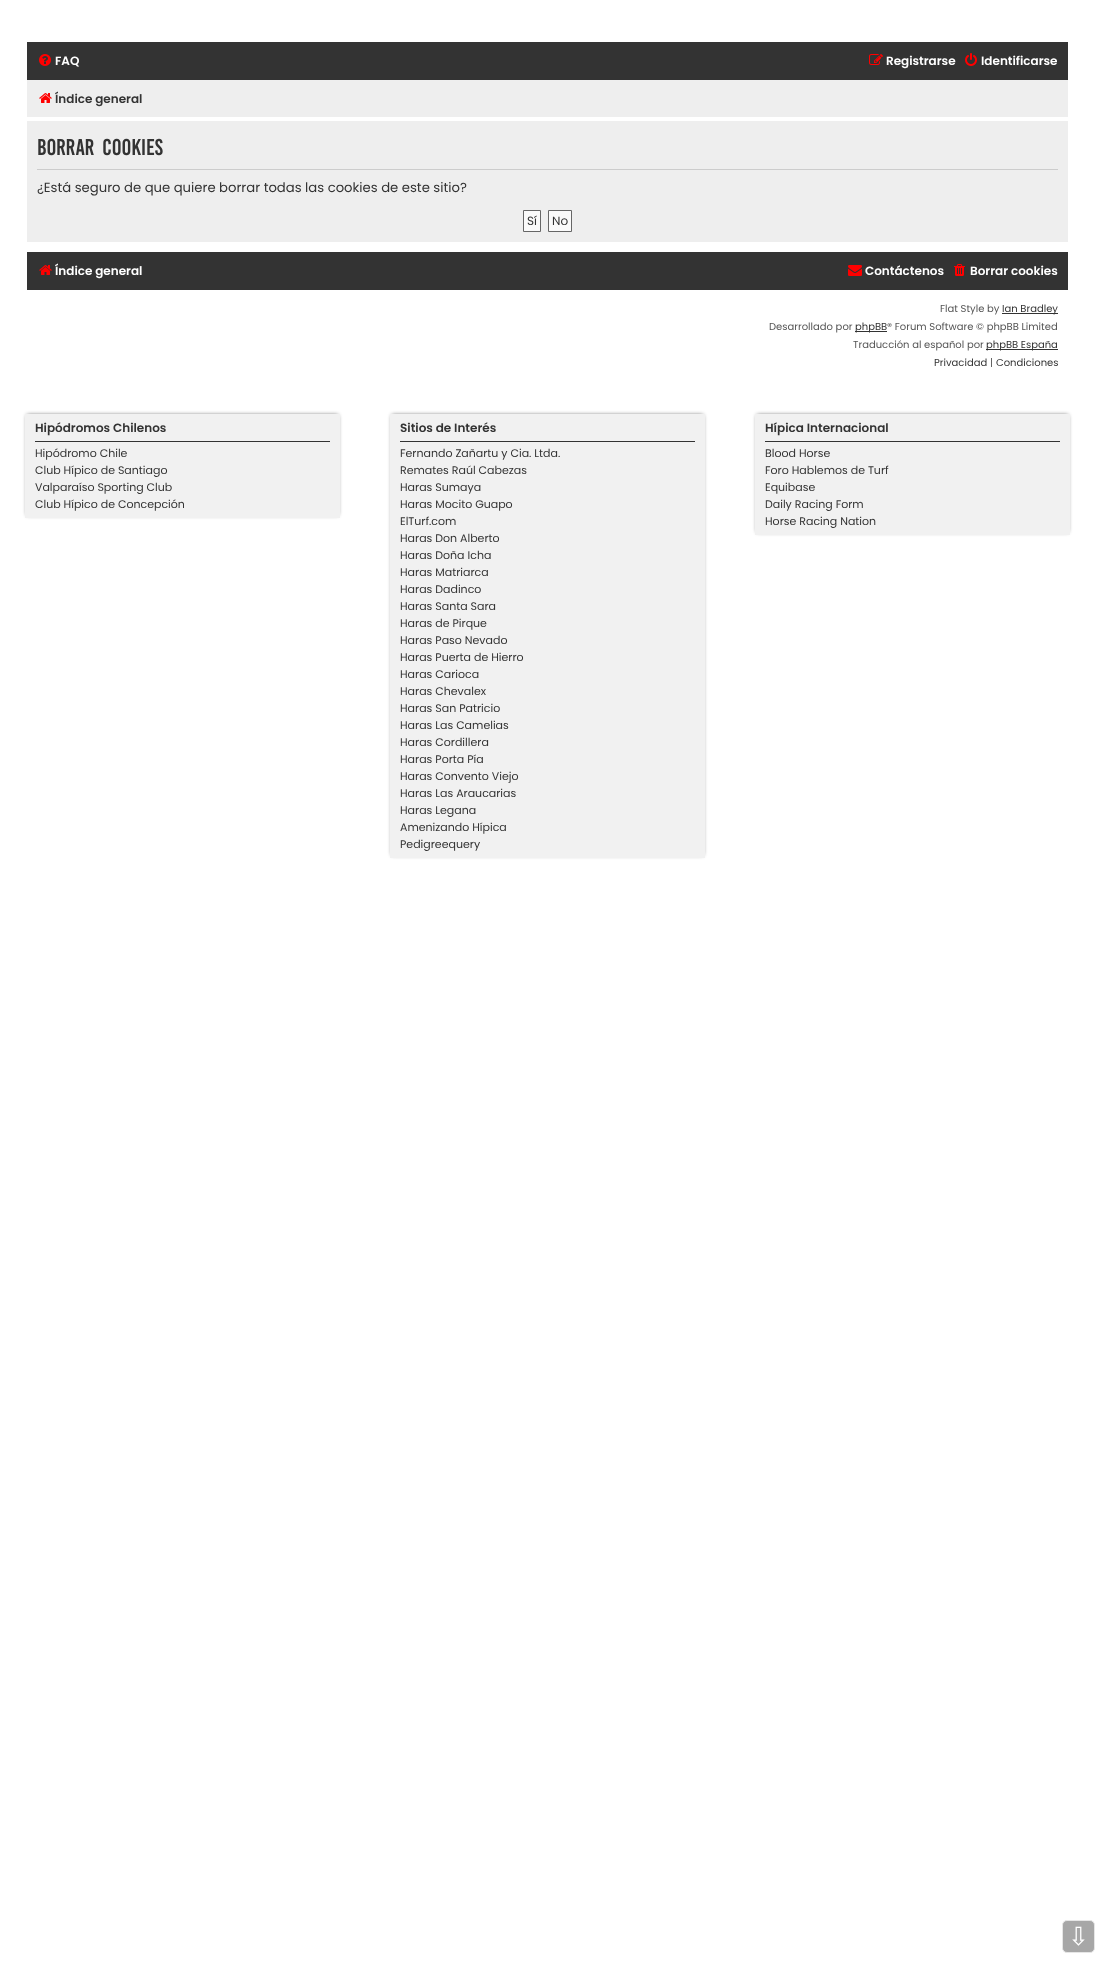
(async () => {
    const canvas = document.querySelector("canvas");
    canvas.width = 1095;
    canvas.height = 1963;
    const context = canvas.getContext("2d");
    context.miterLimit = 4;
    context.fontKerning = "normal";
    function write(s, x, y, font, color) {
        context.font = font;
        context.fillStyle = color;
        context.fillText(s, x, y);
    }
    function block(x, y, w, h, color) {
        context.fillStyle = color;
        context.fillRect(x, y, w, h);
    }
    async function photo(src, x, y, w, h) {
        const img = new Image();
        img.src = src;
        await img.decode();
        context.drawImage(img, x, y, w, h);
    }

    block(0, 0, 1095, 1963, "rgb(255, 255, 255)");
    block(27, 42, 1041, 38, "rgb(51, 51, 51)");
    await photo("media/1.png", 39, 54, 12, 12);
    write("FAQ", 55, 65, "600 12px Poppins", "rgb(255, 255, 255)");
    await photo("media/2.png", 869, 54, 14, 11);
    write("Registrarse", 886, 65, "600 12px Poppins", "rgb(255, 255, 255)");
    await photo("media/3.png", 965, 53, 12, 13);
    write("Identificarse", 981, 65, "600 12px Poppins", "rgb(255, 255, 255)");
    block(27, 80, 1041, 37, "rgb(238, 238, 238)");
    await photo("media/4.png", 39, 93, 13, 10);
    write("Índice general", 55, 103, "600 12px Poppins", "rgb(51, 51, 51)");
    block(27, 121, 1041, 121, "rgb(238, 238, 238)");
    block(37, 169, 1021, 1, "rgb(204, 204, 204)");
    context.wordSpacing = "4px";
    write("Borrar cookies", 37, 155, "17.5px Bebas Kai", "rgb(51, 51, 51)");
    context.wordSpacing = "0px";
    write("¿Está seguro de que quiere borrar todas las cookies de este sitio?", 37, 192, "13.2px Poppins", "rgb(51, 51, 51)");
    context.fillStyle = "rgb(250, 250, 250)";
    context.beginPath();
    context.rect(523.5, 210.5, 17, 21);
    context.fill();
    context.strokeStyle = "rgb(102, 102, 102)";
    context.stroke();
    write("Sí", 527, 225, "12px Poppins", "rgb(51, 51, 51)");
    context.fillStyle = "rgb(250, 250, 250)";
    context.beginPath();
    context.rect(548.5, 210.5, 23, 21);
    context.fill();
    context.stroke();
    write("No", 552, 225, "12px Poppins", "rgb(51, 51, 51)");
    block(27, 252, 1041, 38, "rgb(51, 51, 51)");
    await photo("media/5.png", 39, 265, 13, 10);
    write("Índice general", 55, 275, "600 12px Poppins", "rgb(255, 255, 255)");
    await photo("media/6.png", 848, 265, 14, 11);
    write("Contáctenos", 865, 275, "600 12px Poppins", "rgb(255, 255, 255)");
    await photo("media/7.png", 954, 264, 11, 12);
    write("Borrar cookies", 970, 275, "600 12px Poppins", "rgb(255, 255, 255)");
    write("Flat Style by", 940, 312, "10px Poppins", "rgb(85, 85, 85)");
    block(1002, 313, 56, 1, "rgb(51, 51, 51)");
    write("Ian Bradley", 1002, 312, "10px Poppins", "rgb(51, 51, 51)");
    write("Desarrollado por", 769, 330, "10px Poppins", "rgb(85, 85, 85)");
    block(855, 331, 32, 1, "rgb(51, 51, 51)");
    write("phpBB", 855, 330, "10px Poppins", "rgb(51, 51, 51)");
    write("® Forum Software © phpBB Limited", 887, 330, "10px Poppins", "rgb(85, 85, 85)");
    write("Traducción al español por", 853, 348, "10px Poppins", "rgb(85, 85, 85)");
    block(986, 349, 72, 1, "rgb(51, 51, 51)");
    write("phpBB España", 986, 348, "10px Poppins", "rgb(51, 51, 51)");
    write("Privacidad", 934, 366, "10px Poppins", "rgb(51, 51, 51)");
    write("|", 990, 366, "10px Poppins", "rgb(85, 85, 85)");
    write("Condiciones", 996, 366, "10px Poppins", "rgb(51, 51, 51)");
    context.fillStyle = "rgba(2, 2, 2, 0.7)";
    context.filter = "blur(2px)";
    context.beginPath();
    context.rect(27, 415, 311, 100);
    context.fill();
    context.filter = "none";
    block(25, 414, 315, 104, "rgb(241, 241, 241)");
    block(35, 441, 295, 1, "rgb(51, 51, 51)");
    write("Hipódromos Chilenos", 35, 432, "600 12px Poppins", "rgb(51, 51, 51)");
    write("Hipódromo Chile", 35, 457, "11px Poppins", "rgb(51, 51, 51)");
    write("Club Hípico de Santiago", 35, 474, "11px Poppins", "rgb(51, 51, 51)");
    write("Valparaíso Sporting Club", 35, 491, "11px Poppins", "rgb(51, 51, 51)");
    write("Club Hípico de Concepción", 35, 508, "11px Poppins", "rgb(51, 51, 51)");
    context.fillStyle = "rgba(2, 2, 2, 0.7)";
    context.filter = "blur(2px)";
    context.beginPath();
    context.rect(392, 415, 311, 440);
    context.fill();
    context.filter = "none";
    block(390, 414, 315, 444, "rgb(241, 241, 241)");
    block(400, 441, 295, 1, "rgb(51, 51, 51)");
    write("Sitios de Interés", 400, 432, "600 12px Poppins", "rgb(51, 51, 51)");
    write("Fernando Zañartu y Cia. Ltda.", 400, 457, "11px Poppins", "rgb(51, 51, 51)");
    write("Remates Raúl Cabezas", 400, 474, "11px Poppins", "rgb(51, 51, 51)");
    write("Haras Sumaya", 400, 491, "11px Poppins", "rgb(51, 51, 51)");
    write("Haras Mocito Guapo", 400, 508, "11px Poppins", "rgb(51, 51, 51)");
    write("ElTurf.com", 400, 525, "11px Poppins", "rgb(51, 51, 51)");
    write("Haras Don Alberto", 400, 542, "11px Poppins", "rgb(51, 51, 51)");
    write("Haras Doña Icha", 400, 559, "11px Poppins", "rgb(51, 51, 51)");
    write("Haras Matriarca", 400, 576, "11px Poppins", "rgb(51, 51, 51)");
    write("Haras Dadinco", 400, 593, "11px Poppins", "rgb(51, 51, 51)");
    write("Haras Santa Sara", 400, 610, "11px Poppins", "rgb(51, 51, 51)");
    write("Haras de Pirque", 400, 627, "11px Poppins", "rgb(51, 51, 51)");
    write("Haras Paso Nevado", 400, 644, "11px Poppins", "rgb(51, 51, 51)");
    write("Haras Puerta de Hierro", 400, 661, "11px Poppins", "rgb(51, 51, 51)");
    write("Haras Carioca", 400, 678, "11px Poppins", "rgb(51, 51, 51)");
    write("Haras Chevalex", 400, 695, "11px Poppins", "rgb(51, 51, 51)");
    write("Haras San Patricio", 400, 712, "11px Poppins", "rgb(51, 51, 51)");
    write("Haras Las Camelias", 400, 729, "11px Poppins", "rgb(51, 51, 51)");
    write("Haras Cordillera", 400, 746, "11px Poppins", "rgb(51, 51, 51)");
    write("Haras Porta Pía", 400, 763, "11px Poppins", "rgb(51, 51, 51)");
    write("Haras Convento Viejo", 400, 780, "11px Poppins", "rgb(51, 51, 51)");
    write("Haras Las Araucarias", 400, 797, "11px Poppins", "rgb(51, 51, 51)");
    write("Haras Legana", 400, 814, "11px Poppins", "rgb(51, 51, 51)");
    write("Amenizando Hípica", 400, 831, "11px Poppins", "rgb(51, 51, 51)");
    write("Pedigreequery", 400, 848, "11px Poppins", "rgb(51, 51, 51)");
    context.fillStyle = "rgba(2, 2, 2, 0.7)";
    context.filter = "blur(2px)";
    context.beginPath();
    context.rect(757, 415, 311, 117);
    context.fill();
    context.filter = "none";
    block(755, 414, 315, 121, "rgb(241, 241, 241)");
    block(765, 441, 295, 1, "rgb(51, 51, 51)");
    write("Hípica Internacional", 765, 432, "600 12px Poppins", "rgb(51, 51, 51)");
    write("Blood Horse", 765, 457, "11px Poppins", "rgb(51, 51, 51)");
    write("Foro Hablemos de Turf", 765, 474, "11px Poppins", "rgb(51, 51, 51)");
    write("Equibase", 765, 491, "11px Poppins", "rgb(51, 51, 51)");
    write("Daily Racing Form", 765, 508, "11px Poppins", "rgb(51, 51, 51)");
    write("Horse Racing Nation", 765, 525, "11px Poppins", "rgb(51, 51, 51)");
    context.fillStyle = "rgb(167, 167, 167)";
    context.beginPath();
    context.roundRect(1062.5, 1920.5, 32, 32, 4.5);
    context.fill();
    context.strokeStyle = "rgb(230, 230, 230)";
    context.stroke();
    write("⇩", 1068, 1945, "25px DejaVu Sans", "rgb(255, 255, 255)");
})();
